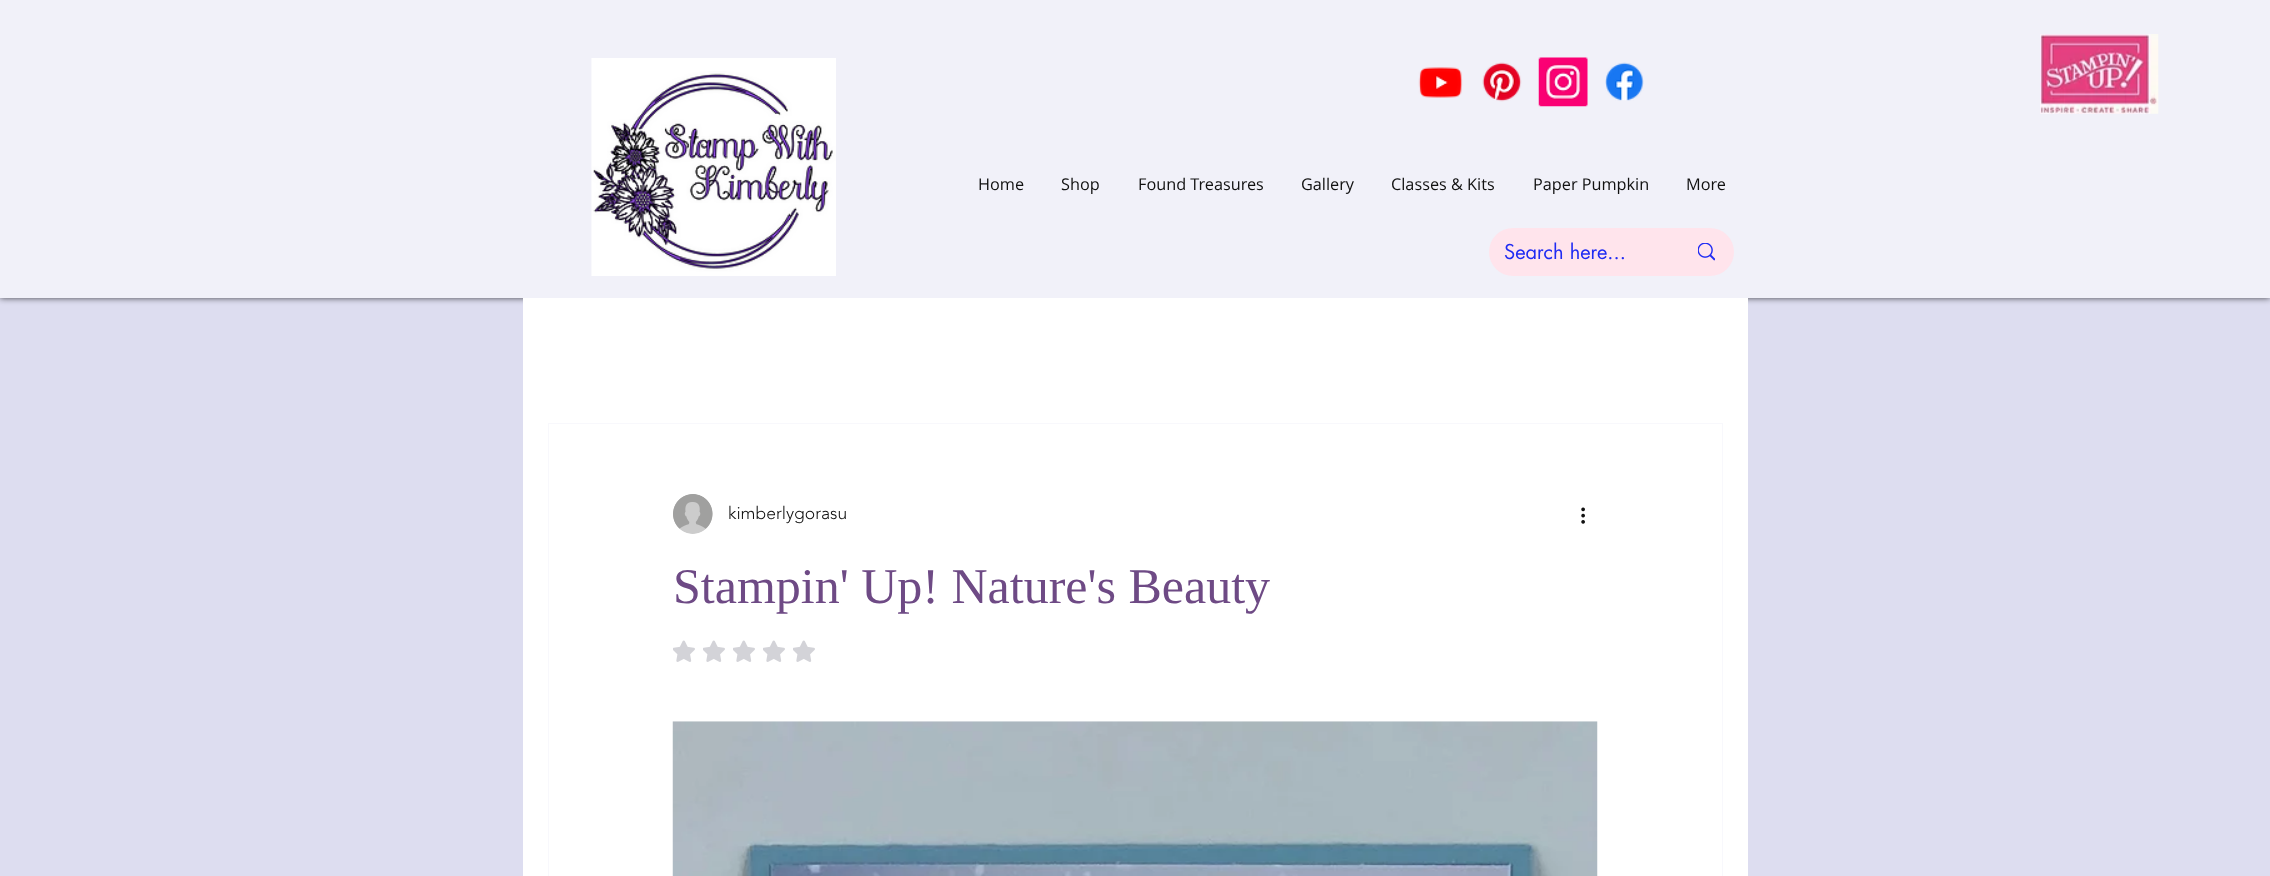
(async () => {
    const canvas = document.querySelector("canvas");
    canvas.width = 2270;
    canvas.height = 876;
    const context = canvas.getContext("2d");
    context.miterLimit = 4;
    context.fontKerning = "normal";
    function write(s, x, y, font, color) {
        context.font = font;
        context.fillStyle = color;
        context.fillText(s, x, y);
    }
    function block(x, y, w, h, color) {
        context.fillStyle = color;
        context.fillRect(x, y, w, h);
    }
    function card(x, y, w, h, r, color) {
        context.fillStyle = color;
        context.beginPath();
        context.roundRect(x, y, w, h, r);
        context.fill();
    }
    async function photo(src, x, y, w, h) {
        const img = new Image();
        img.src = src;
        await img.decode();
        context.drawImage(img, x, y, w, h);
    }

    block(0, 0, 2270, 876, "rgb(221, 221, 240)");
    context.save();
    context.beginPath();
    context.moveTo(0, 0);
    context.lineTo(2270, 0);
    context.lineTo(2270, 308);
    context.lineTo(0, 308);
    context.closePath();
    context.moveTo(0, 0);
    context.lineTo(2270, 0);
    context.lineTo(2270, 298);
    context.lineTo(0, 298);
    context.closePath();
    context.clip("evenodd");
    context.fillStyle = "rgba(0, 0, 0, 0.7)";
    context.filter = "blur(3px)";
    context.beginPath();
    context.rect(0, 0, 2270, 298);
    context.fill();
    context.filter = "none";
    context.restore();
    block(0, 0, 2270, 298, "rgba(255, 255, 255, 0.6)");
    await photo("media/1.png", 2040, 34, 119, 80);
    await photo("media/2.png", 591, 58, 245, 218);
    await photo("media/3.png", 1418, 67, 45, 31);
    await photo("media/4.png", 1482, 62, 40, 40);
    await photo("media/5.png", 1538, 57, 50, 50);
    await photo("media/6.png", 1605, 62, 39, 39);
    write("Home", 978, 190, "16.25px Open Sans", "rgb(17, 17, 17)");
    write("Shop", 1061, 190, "16.25px Open Sans", "rgb(17, 17, 17)");
    write("Found Treasures", 1138, 190, "16.25px Open Sans", "rgb(17, 17, 17)");
    write("Gallery", 1301, 190, "16.25px Open Sans", "rgb(17, 17, 17)");
    write("Classes & Kits", 1391, 190, "16.25px Open Sans", "rgb(17, 17, 17)");
    write("Paper Pumpkin", 1533, 190, "16.25px Open Sans", "rgb(17, 17, 17)");
    write("More", 1686, 190, "16.25px Open Sans", "rgb(17, 17, 17)");
    card(1489, 228, 245, 48, 24, "rgb(255, 228, 236)");
    write("Search here...", 1504, 259, "20px futura", "rgb(31, 43, 243)");
    await photo("media/7.png", 1698, 243, 17, 18);
    block(523, 298, 1225, 578, "rgb(255, 255, 255)");
    context.strokeStyle = "rgb(248, 248, 252)";
    context.strokeRect(548.5, 423.5, 1174, 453);
    await photo("media/8.png", 673, 494, 40, 40);
    write("kimberlygorasu", 728, 519, "300 17.5px 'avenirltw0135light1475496'", "rgb(17, 17, 17)");
    await photo("media/9.png", 1581, 507, 4, 17);
    write("Stampin' Up! Nature's Beauty", 673, 603, "50px Liberation Serif", "rgb(110, 74, 133)");
    await photo("media/10.png", 673, 640, 22, 22);
    await photo("media/10.png", 703, 640, 22, 22);
    await photo("media/10.png", 733, 640, 22, 22);
    await photo("media/10.png", 763, 640, 22, 22);
    await photo("media/10.png", 793, 640, 22, 22);
    await photo("media/11.png", 672, 721, 926, 155);
})();
